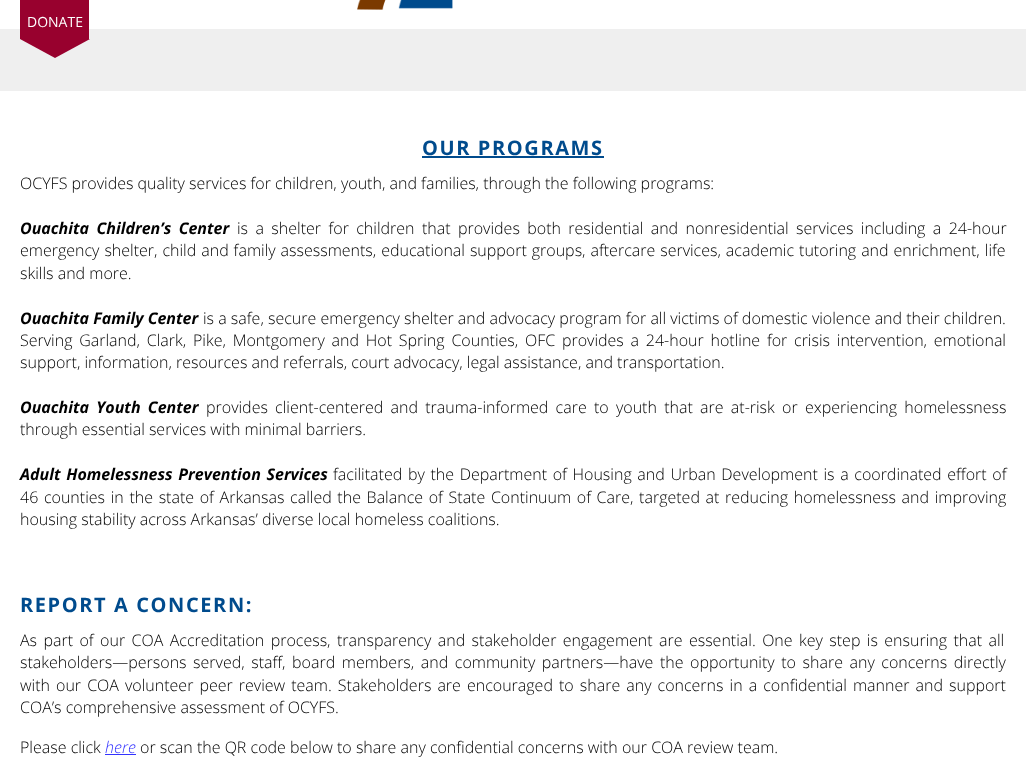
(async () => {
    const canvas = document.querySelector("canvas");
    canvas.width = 1026;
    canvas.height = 774;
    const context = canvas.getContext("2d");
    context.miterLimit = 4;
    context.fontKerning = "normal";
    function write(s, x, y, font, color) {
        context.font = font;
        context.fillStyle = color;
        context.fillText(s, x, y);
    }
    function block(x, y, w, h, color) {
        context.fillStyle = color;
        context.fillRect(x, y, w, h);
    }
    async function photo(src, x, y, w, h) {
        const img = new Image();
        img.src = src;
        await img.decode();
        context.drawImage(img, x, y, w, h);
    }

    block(0, 0, 1026, 774, "rgb(255, 255, 255)");
    await photo("media/1.png", 357, 0, 96, 10);
    block(0, 29, 1026, 62, "rgb(239, 239, 239)");
    block(20, 0, 69, 39, "rgb(152, 1, 46)");
    write("DONATE", 27, 27, "14px Open Sans", "rgb(255, 255, 255)");
    context.fillStyle = "rgb(152, 1, 46)";
    context.beginPath();
    context.moveTo(20, 39);
    context.lineTo(90, 39);
    context.lineTo(55, 58);
    context.closePath();
    context.fill();
    context.letterSpacing = "1.6px";
    write("OUR PROGRAMS", 422, 155, "bold 20px Open Sans", "rgb(0, 75, 141)");
    block(422, 156, 182, 2, "rgb(0, 75, 141)");
    context.letterSpacing = "0px";
    write("OCYFS provides quality services for children, youth, and families, through the following programs:", 20, 189, "300 16px Open Sans", "rgb(0, 0, 0)");
    context.wordSpacing = "3.25px";
    write("Ouachita Children’s Center", 20, 234, "italic bold 16px Open Sans", "rgb(0, 0, 0)");
    write("is a shelter for children that provides both residential and nonresidential services including a 24-hour", 237, 234, "300 16px Open Sans", "rgb(0, 0, 0)");
    context.wordSpacing = "0.8px";
    write("emergency shelter, child and family assessments, educational support groups, aftercare services, academic tutoring and enrichment, life", 20, 256, "300 16px Open Sans", "rgb(0, 0, 0)");
    context.wordSpacing = "0px";
    write("skills and more.", 20, 279, "300 16px Open Sans", "rgb(0, 0, 0)");
    write("Ouachita Family Center", 20, 324, "italic bold 16px Open Sans", "rgb(0, 0, 0)");
    write("is a safe, secure emergency shelter and advocacy program for all victims of domestic violence and their children.", 203, 324, "300 16px Open Sans", "rgb(0, 0, 0)");
    context.wordSpacing = "2.6px";
    write("Serving Garland, Clark, Pike, Montgomery and Hot Spring Counties, OFC provides a 24-hour hotline for crisis intervention, emotional", 20, 346, "300 16px Open Sans", "rgb(0, 0, 0)");
    context.wordSpacing = "0px";
    write("support, information, resources and referrals, court advocacy, legal assistance, and transportation.", 20, 368, "300 16px Open Sans", "rgb(0, 0, 0)");
    context.wordSpacing = "3.1px";
    write("Ouachita Youth Center", 20, 413, "italic bold 16px Open Sans", "rgb(0, 0, 0)");
    write("provides client-centered and trauma-informed care to youth that are at-risk or experiencing homelessness", 206, 413, "300 16px Open Sans", "rgb(0, 0, 0)");
    context.wordSpacing = "0px";
    write("through essential services with minimal barriers.", 20, 435, "300 16px Open Sans", "rgb(0, 0, 0)");
    context.wordSpacing = "1.5px";
    write("Adult Homelessness Prevention Services", 20, 480, "italic bold 16px Open Sans", "rgb(0, 0, 0)");
    write("facilitated by the Department of Housing and Urban Development is a coordinated effort of", 333, 480, "300 16px Open Sans", "rgb(0, 0, 0)");
    write("46 counties in the state of Arkansas called the Balance of State Continuum of Care, targeted at reducing homelessness and improving", 20, 503, "300 16px Open Sans", "rgb(0, 0, 0)");
    context.wordSpacing = "0px";
    write("housing stability across Arkansas’ diverse local homeless coalitions.", 20, 525, "300 16px Open Sans", "rgb(0, 0, 0)");
    context.letterSpacing = "1.6px";
    write("REPORT A CONCERN:", 20, 612, "bold 20px Open Sans", "rgb(0, 75, 141)");
    context.letterSpacing = "0px";
    context.wordSpacing = "2.25px";
    write("As part of our COA Accreditation process, transparency and stakeholder engagement are essential. One key step is ensuring that all", 20, 646, "300 16px Open Sans", "rgb(0, 0, 0)");
    context.wordSpacing = "2.4px";
    write("stakeholders—persons served, staff, board members, and community partners—have the opportunity to share any concerns directly", 20, 668, "300 16px Open Sans", "rgb(0, 0, 0)");
    context.wordSpacing = "1.9px";
    write("with our COA volunteer peer review team. Stakeholders are encouraged to share any concerns in a confidential manner and support", 20, 691, "300 16px Open Sans", "rgb(0, 0, 0)");
    context.wordSpacing = "0px";
    write("COA’s comprehensive assessment of OCYFS.", 20, 713, "300 16px Open Sans", "rgb(0, 0, 0)");
    write("Please click", 20, 753, "300 16px Open Sans", "rgb(0, 0, 0)");
    write("here", 105, 753, "italic 300 16px Open Sans", "rgb(51, 51, 255)");
    block(105, 754, 31, 1, "rgb(51, 51, 255)");
    write("or scan the QR code below to share any confidential concerns with our COA review team.", 140, 753, "300 16px Open Sans", "rgb(0, 0, 0)");
})();
